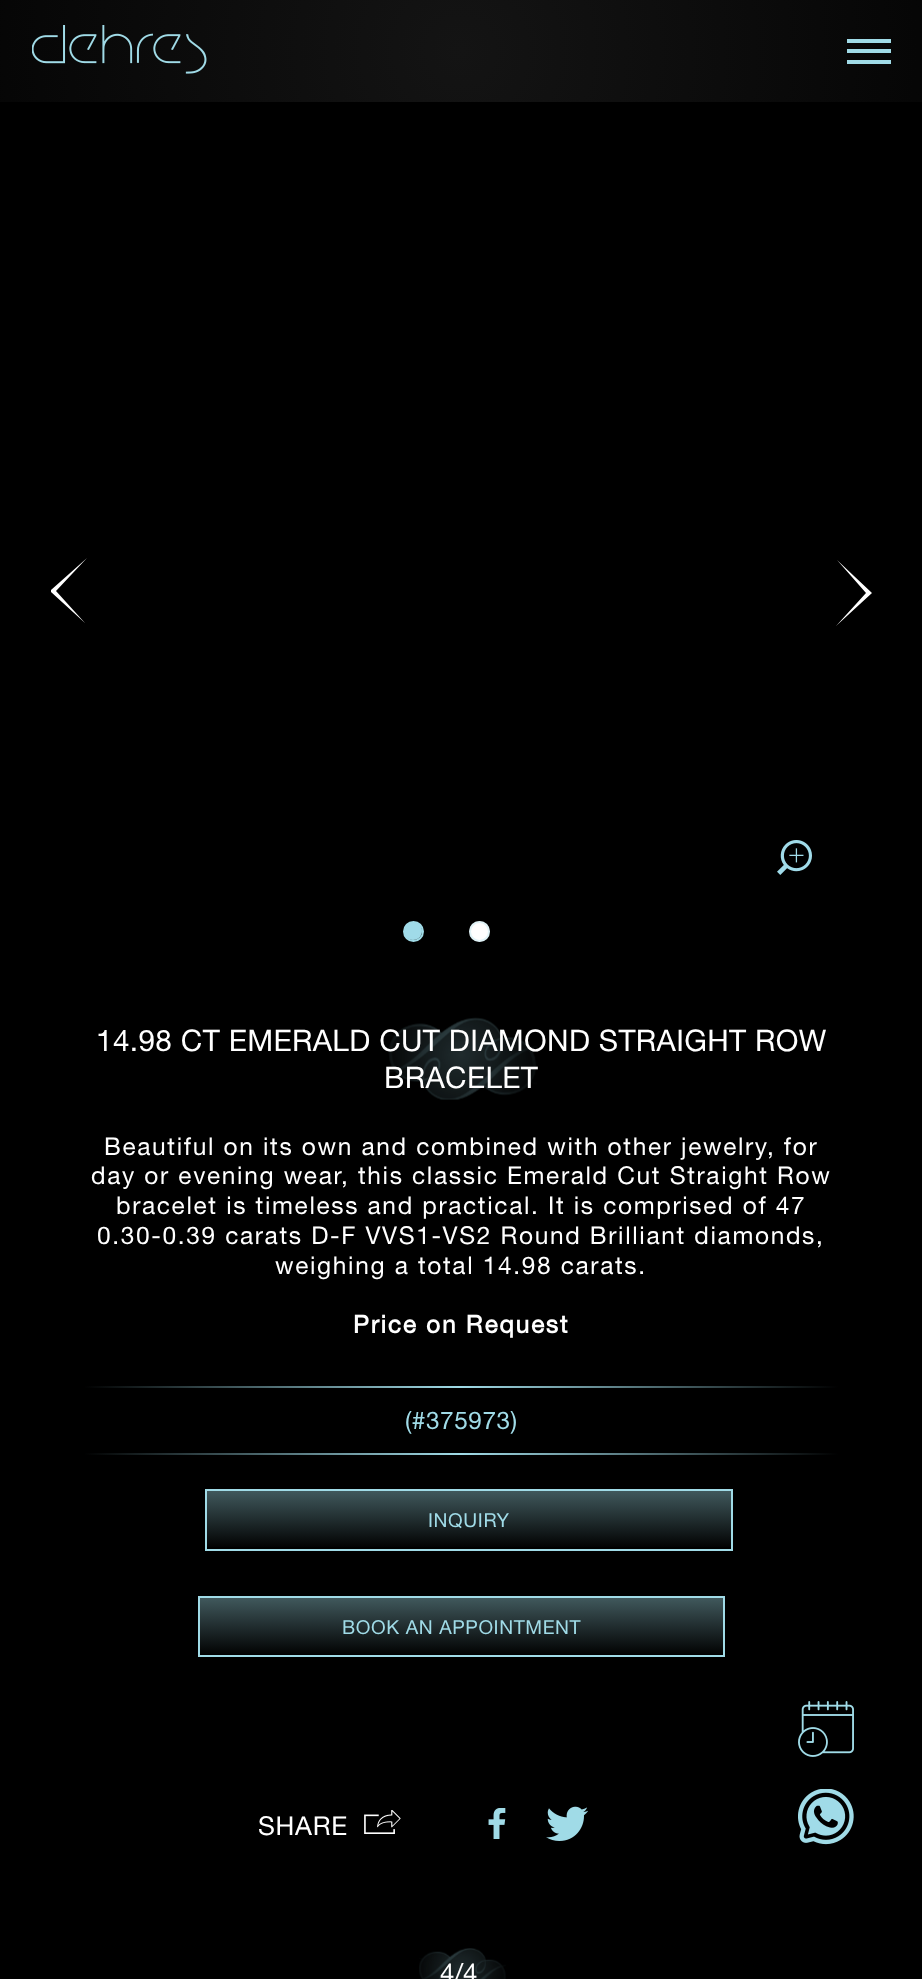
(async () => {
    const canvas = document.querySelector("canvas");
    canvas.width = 922;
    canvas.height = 1979;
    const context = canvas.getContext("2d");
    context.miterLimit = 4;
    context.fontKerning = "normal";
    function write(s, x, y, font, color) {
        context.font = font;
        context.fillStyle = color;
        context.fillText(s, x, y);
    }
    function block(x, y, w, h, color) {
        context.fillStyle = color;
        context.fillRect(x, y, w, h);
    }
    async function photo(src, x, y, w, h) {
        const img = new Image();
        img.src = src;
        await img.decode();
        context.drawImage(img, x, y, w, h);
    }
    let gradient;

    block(0, 0, 922, 1979, "rgb(0, 0, 0)");
    gradient = context.createRadialGradient(461, 51, 0, 461, 51, 652);
    gradient.addColorStop(0, "rgb(20, 20, 20)");
    gradient.addColorStop(1, "rgb(0, 0, 0)");
    context.fillStyle = gradient;
    context.fillRect(0, 0, 922, 102);
    await photo("media/1.png", 32, 25, 175, 49);
    block(847, 39, 44, 4, "rgb(160, 219, 231)");
    block(847, 49, 44, 4, "rgb(160, 219, 231)");
    block(847, 60, 44, 4, "rgb(160, 219, 231)");
    context.fillStyle = "rgb(255, 255, 255)";
    context.beginPath();
    context.moveTo(87, 558);
    context.lineTo(56, 591);
    context.lineTo(85, 623);
    context.lineTo(51, 592);
    context.lineTo(51, 590);
    context.closePath();
    context.fill();
    context.beginPath();
    context.moveTo(836, 626);
    context.lineTo(866, 593);
    context.lineTo(837, 560);
    context.lineTo(872, 593);
    context.closePath();
    context.fill();
    await photo("media/2.png", 777, 840, 35, 35);
    context.beginPath();
    context.arc(413.5, 931.5, 9.5, 0, Math.PI * 2);
    context.strokeStyle = "rgb(160, 219, 231)";
    context.lineWidth = 2;
    context.stroke();
    context.fillStyle = "rgb(160, 219, 233)";
    context.beginPath();
    context.moveTo(413, 922);
    context.bezierCurveTo(401, 922, 401, 940, 413, 940);
    context.bezierCurveTo(425, 940, 425, 922, 413, 922);
    context.closePath();
    context.fill();
    context.fillStyle = "rgb(255, 255, 255)";
    context.beginPath();
    context.arc(479.5, 931.5, 10.5, 0, Math.PI * 2);
    context.fill();
    context.beginPath();
    context.arc(479.5, 931.5, 9.5, 0, Math.PI * 2);
    context.strokeStyle = "rgba(160, 219, 231, 0.33)";
    context.stroke();
    await photo("media/3.png", 385, 1017, 152, 83);
    context.letterSpacing = "0.35px";
    write("14.98 CT EMERALD CUT DIAMOND STRAIGHT ROW", 96, 1051, "29.75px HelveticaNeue", "rgb(255, 255, 255)");
    write("BRACELET", 384, 1088, "29.75px HelveticaNeue", "rgb(255, 255, 255)");
    context.letterSpacing = "1.65px";
    write("Beautiful on its own and combined with other jewelry, for", 104, 1155, "24.5px HelveticaNeue", "rgb(255, 255, 255)");
    write("day or evening wear, this classic Emerald Cut Straight Row", 91, 1184, "24.5px HelveticaNeue", "rgb(255, 255, 255)");
    write("bracelet is timeless and practical. It is comprised of 47", 116, 1214, "24.5px HelveticaNeue", "rgb(255, 255, 255)");
    write("0.30-0.39 carats D-F VVS1-VS2 Round Brilliant diamonds,", 97, 1244, "24.5px HelveticaNeue", "rgb(255, 255, 255)");
    write("weighing a total 14.98 carats.", 275, 1274, "24.5px HelveticaNeue", "rgb(255, 255, 255)");
    context.letterSpacing = "1.75px";
    write("Price on Request", 353, 1333, "bold 24.5px HelveticaNeue", "rgb(255, 255, 255)");
    gradient = context.createLinearGradient(838, 1387, 84, 1387);
    gradient.addColorStop(0, "rgb(0, 0, 0)");
    gradient.addColorStop(0.5, "rgb(160, 219, 231)");
    gradient.addColorStop(1, "rgb(0, 0, 0)");
    context.fillStyle = gradient;
    context.fillRect(84, 1386, 754, 2);
    context.letterSpacing = "0.5px";
    write("(#375973)", 405, 1429, "24.5px HelveticaNeue", "rgb(160, 219, 231)");
    gradient = context.createLinearGradient(838, 1453, 84, 1453);
    gradient.addColorStop(0, "rgb(0, 0, 0)");
    gradient.addColorStop(0.5, "rgb(160, 219, 231)");
    gradient.addColorStop(1, "rgb(0, 0, 0)");
    context.fillStyle = gradient;
    context.fillRect(84, 1453, 754, 2);
    gradient = context.createLinearGradient(469, 1491, 469, 1549);
    gradient.addColorStop(0, "rgb(64, 88, 92)");
    gradient.addColorStop(1, "rgb(0, 0, 0)");
    context.fillStyle = gradient;
    context.fillRect(207, 1491, 524, 56);
    context.strokeStyle = "rgb(160, 219, 231)";
    context.strokeRect(206, 1490, 526, 60);
    context.letterSpacing = "0.6px";
    write("INQUIRY", 428, 1527, "19.25px HelveticaNeue", "rgb(160, 219, 231)");
    gradient = context.createLinearGradient(461, 1598, 461, 1656);
    gradient.addColorStop(0, "rgb(64, 88, 92)");
    gradient.addColorStop(1, "rgb(0, 0, 0)");
    context.fillStyle = gradient;
    context.fillRect(200, 1598, 523, 56);
    context.strokeRect(199, 1597, 525, 59);
    write("BOOK AN APPOINTMENT", 342, 1634, "19.25px HelveticaNeue", "rgb(160, 219, 231)");
    context.letterSpacing = "0.75px";
    write("SHARE", 258, 1835, "26px HelveticaNeue", "rgb(255, 255, 255)");
    await photo("media/4.png", 364, 1810, 37, 24);
    await photo("media/5.png", 488, 1808, 18, 31);
    await photo("media/6.png", 546, 1806, 42, 35);
    await photo("media/7.png", 419, 1948, 87, 31);
    context.letterSpacing = "0px";
    write("4/4", 440, 1982, "26px HelveticaNeue", "rgb(255, 255, 255)");
    await photo("media/8.png", 798, 1701, 56, 56);
    await photo("media/9.png", 798, 1789, 56, 56);
})();
